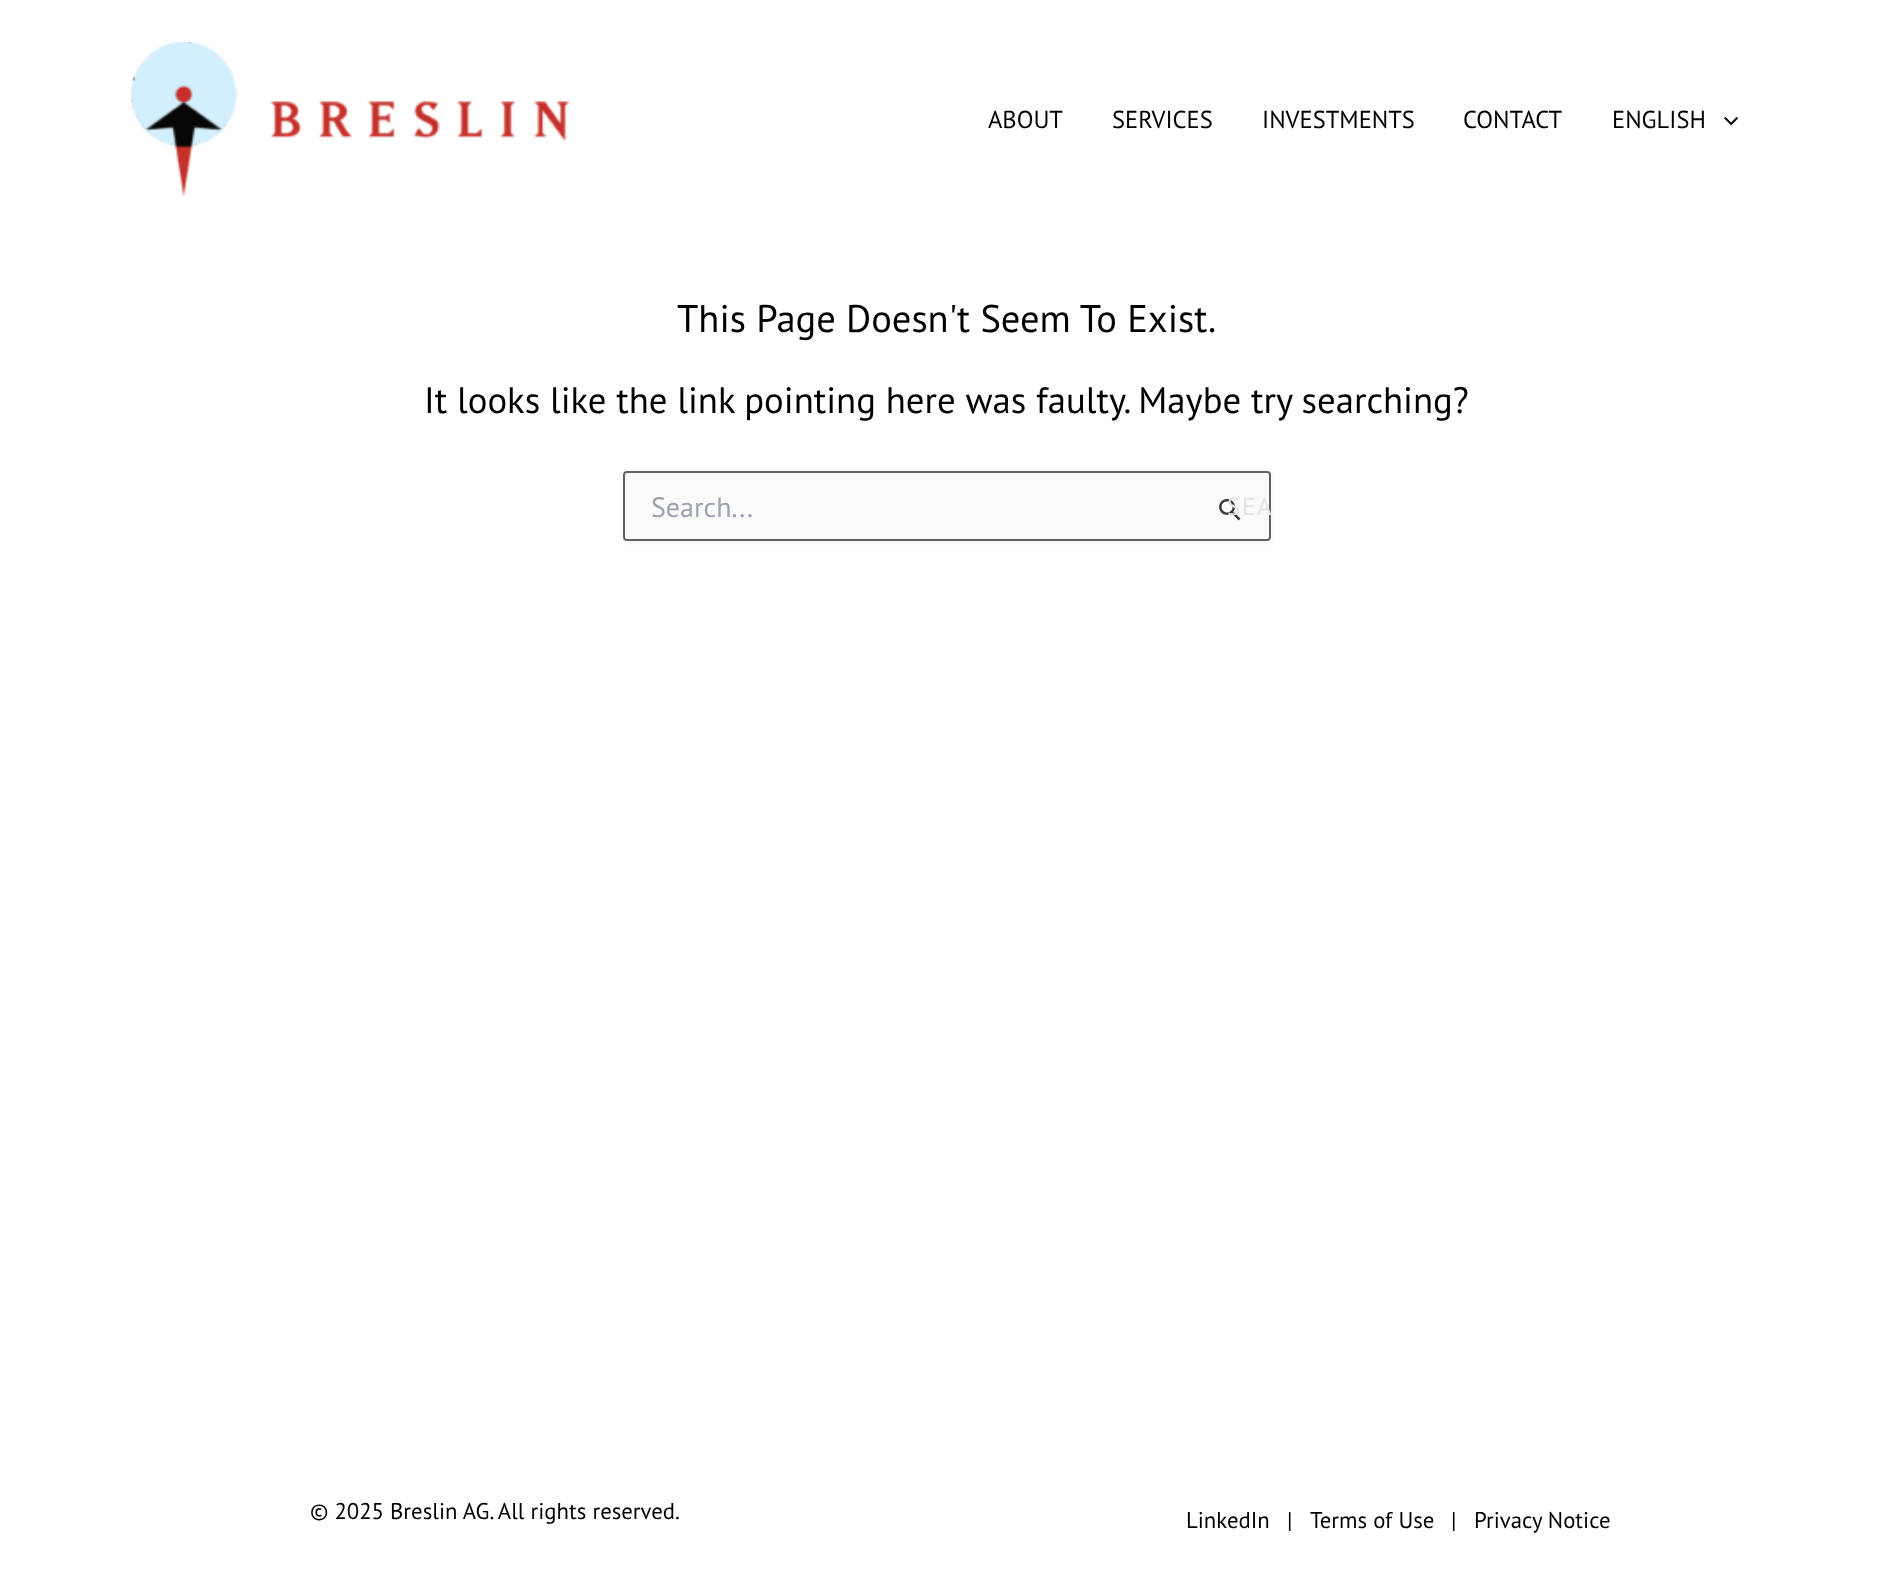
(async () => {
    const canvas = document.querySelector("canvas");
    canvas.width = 1893;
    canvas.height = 1580;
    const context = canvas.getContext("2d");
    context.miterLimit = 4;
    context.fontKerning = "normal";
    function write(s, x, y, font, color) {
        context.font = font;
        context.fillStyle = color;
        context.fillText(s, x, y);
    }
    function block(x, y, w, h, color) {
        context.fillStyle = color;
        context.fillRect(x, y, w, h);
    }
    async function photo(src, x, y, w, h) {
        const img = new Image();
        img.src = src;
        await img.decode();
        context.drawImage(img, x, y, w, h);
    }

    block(0, 0, 1893, 1580, "rgb(255, 255, 255)");
    await photo("media/1.png", 131, 42, 438, 154);
    write("ABOUT", 988, 128, "24.5px PT Sans", "rgb(0, 0, 0)");
    write("SERVICES", 1112, 128, "24.5px PT Sans", "rgb(0, 0, 0)");
    write("INVESTMENTS", 1262, 128, "24.5px PT Sans", "rgb(0, 0, 0)");
    write("CONTACT", 1463, 128, "24.5px PT Sans", "rgb(0, 0, 0)");
    write("ENGLISH", 1612, 128, "24.5px PT Sans", "rgb(0, 0, 0)");
    await photo("media/2.png", 1724, 117, 14, 9);
    write("This Page Doesn't Seem To Exist.", 677, 332, "38.5px PT Sans", "rgb(0, 0, 0)");
    write("It looks like the link pointing here was faulty. Maybe try searching?", 424, 413, "36.75px PT Sans", "rgb(0, 0, 0)");
    context.fillStyle = "rgba(0, 0, 0, 0.05)";
    context.filter = "blur(2px)";
    context.beginPath();
    context.roundRect(623, 473, 648, 70, 4);
    context.fill();
    context.filter = "none";
    context.fillStyle = "rgb(250, 250, 250)";
    context.beginPath();
    context.roundRect(624, 472, 646, 68, 3);
    context.fill();
    context.strokeStyle = "rgb(97, 97, 97)";
    context.lineWidth = 2;
    context.stroke();
    write("Search...", 651, 517, "28px PT Sans", "rgb(156, 163, 175)");
    await photo("media/3.png", 1219, 499, 22, 22);
    context.letterSpacing = "2px";
    write("SEA", 1227, 515, "24.5px PT Sans", "rgb(228, 228, 228)");
    context.letterSpacing = "0px";
    write("© 2025 Breslin AG. All rights reserved.", 310, 1519, "22.75px PT Sans", "rgb(0, 0, 0)");
    write("LinkedIn", 1186, 1528, "22.75px PT Sans", "rgb(0, 0, 0)");
    write("|", 1287, 1528, "22.75px PT Sans", "rgb(0, 0, 0)");
    write("Terms of Use", 1310, 1528, "22.75px PT Sans", "rgb(0, 0, 0)");
    write("|", 1451, 1528, "22.75px PT Sans", "rgb(0, 0, 0)");
    write("Privacy Notice", 1474, 1528, "22.75px PT Sans", "rgb(0, 0, 0)");
})();
